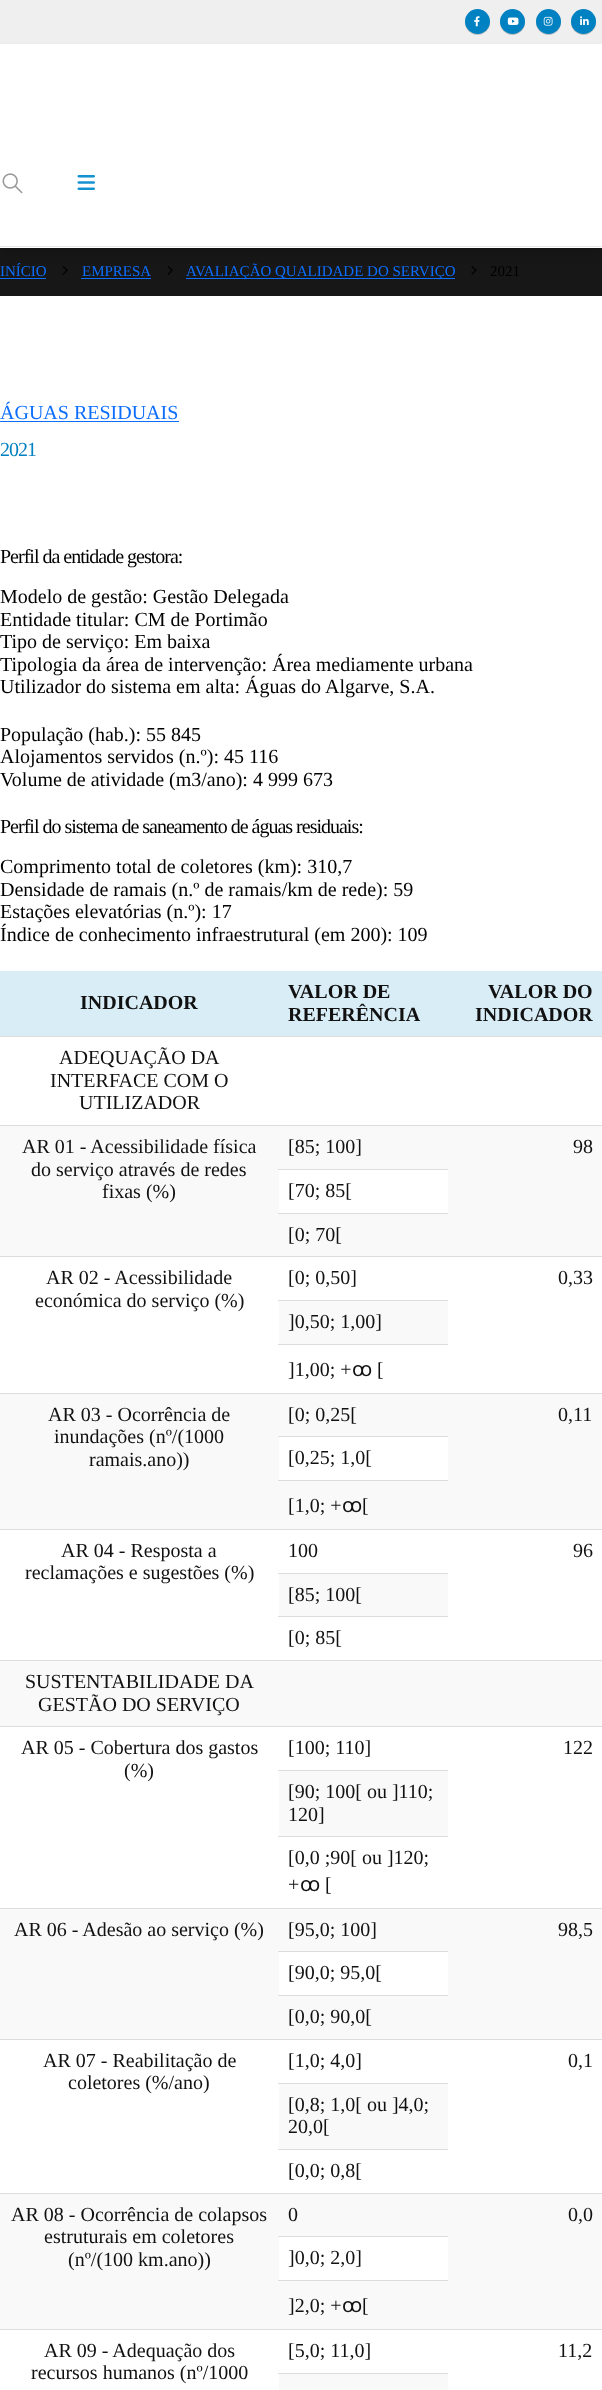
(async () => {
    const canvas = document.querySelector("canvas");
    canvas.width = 602;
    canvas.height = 2390;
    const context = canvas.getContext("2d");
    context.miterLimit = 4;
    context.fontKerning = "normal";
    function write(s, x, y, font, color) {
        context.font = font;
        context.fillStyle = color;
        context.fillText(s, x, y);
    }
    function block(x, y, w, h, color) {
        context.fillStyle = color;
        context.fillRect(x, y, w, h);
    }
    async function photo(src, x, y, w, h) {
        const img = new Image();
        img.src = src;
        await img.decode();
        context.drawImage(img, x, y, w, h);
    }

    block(0, 0, 602, 2390, "rgb(255, 255, 255)");
    block(0, 0, 602, 44, "rgb(239, 239, 239)");
    context.fillStyle = "rgba(0, 0, 0, 0.2)";
    context.filter = "blur(0.5px)";
    context.beginPath();
    context.roundRect(465, 10, 25, 25, 12.5);
    context.fill();
    context.filter = "none";
    context.fillStyle = "rgb(0, 129, 193)";
    context.beginPath();
    context.arc(477.5, 21.5, 12.5, 0, Math.PI * 2);
    context.fill();
    await photo("media/1.png", 474, 16, 6, 11);
    context.fillStyle = "rgba(0, 0, 0, 0.2)";
    context.filter = "blur(0.5px)";
    context.beginPath();
    context.roundRect(500, 10, 25, 25, 12.5);
    context.fill();
    context.filter = "none";
    context.fillStyle = "rgb(0, 129, 193)";
    context.beginPath();
    context.arc(512.5, 21.5, 12.5, 0, Math.PI * 2);
    context.fill();
    await photo("media/2.png", 507, 17, 12, 8);
    context.fillStyle = "rgba(0, 0, 0, 0.2)";
    context.filter = "blur(0.5px)";
    context.beginPath();
    context.roundRect(536, 10, 25, 25, 12.5);
    context.fill();
    context.filter = "none";
    context.fillStyle = "rgb(0, 129, 193)";
    context.beginPath();
    context.arc(548.5, 21.5, 12.5, 0, Math.PI * 2);
    context.fill();
    await photo("media/3.png", 543, 16, 10, 10);
    context.fillStyle = "rgba(0, 0, 0, 0.2)";
    context.filter = "blur(0.5px)";
    context.beginPath();
    context.roundRect(571, 10, 25, 25, 12.5);
    context.fill();
    context.filter = "none";
    context.fillStyle = "rgb(0, 129, 193)";
    context.beginPath();
    context.arc(583.5, 21.5, 12.5, 0, Math.PI * 2);
    context.fill();
    await photo("media/4.png", 580, 16, 9, 9);
    block(0, 248, 602, 48, "rgb(23, 23, 23)");
    await photo("media/7.png", 62, 266, 6, 9);
    await photo("media/7.png", 167, 266, 6, 9);
    await photo("media/8.png", 471, 266, 6, 9);
    context.save();
    context.beginPath();
    context.moveTo(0, 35);
    context.lineTo(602, 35);
    context.lineTo(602, 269);
    context.lineTo(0, 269);
    context.closePath();
    context.moveTo(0, 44);
    context.lineTo(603, 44);
    context.lineTo(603, 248);
    context.lineTo(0, 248);
    context.closePath();
    context.clip("evenodd");
    context.fillStyle = "rgba(0, 0, 0, 0.12)";
    context.filter = "blur(4.5px)";
    context.beginPath();
    context.rect(0, 50, 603, 204);
    context.fill();
    context.filter = "none";
    context.restore();
    block(0, 246, 602, 1, "rgb(232, 232, 232)");
    await photo("media/5.png", 2, 173, 21, 21);
    await photo("media/6.png", 77, 175, 18, 15);
    write("INÍCIO", 0, 276, "15px Liberation Serif", "rgb(13, 110, 253)");
    block(0, 278, 46, 1, "rgb(13, 110, 253)");
    write("EMPRESA", 82, 276, "15px Liberation Serif", "rgb(13, 110, 253)");
    block(81, 278, 70, 1, "rgb(13, 110, 253)");
    block(186, 278, 269, 1, "rgb(13, 110, 253)");
    write("AVALIAÇÃO QUALIDADE DO SERVIÇO", 186, 276, "15px Liberation Serif", "rgb(13, 110, 253)");
    write("2021", 490, 276, "15px Liberation Serif", "rgb(0, 0, 0)");
    write("ÁGUAS RESIDUAIS", 0, 419, "20px Liberation Serif", "rgb(13, 110, 253)");
    block(0, 421, 179, 1, "rgb(13, 110, 253)");
    context.letterSpacing = "-1px";
    write("2021", 0, 456, "20px Liberation Serif", "rgb(0, 129, 193)");
    write("Perfil da entidade gestora:", 0, 563, "20px Liberation Serif", "rgb(0, 0, 0)");
    context.letterSpacing = "0px";
    write("Modelo de gestão: Gestão Delegada", 0, 603, "20px Liberation Serif", "rgb(0, 0, 0)");
    write("Entidade titular: CM de Portimão", 0, 626, "20px Liberation Serif", "rgb(0, 0, 0)");
    write("Tipo de serviço: Em baixa", 0, 648, "20px Liberation Serif", "rgb(0, 0, 0)");
    write("Tipologia da área de intervenção: Área mediamente urbana", 0, 671, "20px Liberation Serif", "rgb(0, 0, 0)");
    write("Utilizador do sistema em alta: Águas do Algarve, S.A.", 0, 693, "20px Liberation Serif", "rgb(0, 0, 0)");
    write("População (hab.): 55 845", 0, 741, "20px Liberation Serif", "rgb(0, 0, 0)");
    write("Alojamentos servidos (n.º): 45 116", 0, 763, "20px Liberation Serif", "rgb(0, 0, 0)");
    write("Volume de atividade (m3/ano): 4 999 673", 0, 786, "20px Liberation Serif", "rgb(0, 0, 0)");
    context.letterSpacing = "-1px";
    write("Perfil do sistema de saneamento de águas residuais:", 0, 833, "20px Liberation Serif", "rgb(0, 0, 0)");
    context.letterSpacing = "0px";
    write("Comprimento total de coletores (km): 310,7", 0, 873, "20px Liberation Serif", "rgb(0, 0, 0)");
    write("Densidade de ramais (n.º de ramais/km de rede): 59", 0, 896, "20px Liberation Serif", "rgb(0, 0, 0)");
    write("Estações elevatórias (n.º): 17", 0, 918, "20px Liberation Serif", "rgb(0, 0, 0)");
    write("Índice de conhecimento infraestrutural (em 200): 109", 0, 941, "20px Liberation Serif", "rgb(0, 0, 0)");
    block(0, 971, 602, 65, "rgb(217, 237, 247)");
    write("INDICADOR", 80, 1009, "bold 20px Liberation Serif", "rgb(17, 17, 17)");
    write("VALOR DE", 288, 998, "bold 20px Liberation Serif", "rgb(17, 17, 17)");
    write("REFERÊNCIA", 288, 1021, "bold 20px Liberation Serif", "rgb(17, 17, 17)");
    write("VALOR DO", 488, 998, "bold 20px Liberation Serif", "rgb(17, 17, 17)");
    write("INDICADOR", 475, 1021, "bold 20px Liberation Serif", "rgb(17, 17, 17)");
    block(0, 1036, 602, 1, "rgb(221, 221, 221)");
    write("ADEQUAÇÃO DA", 59, 1064, "20px Liberation Serif", "rgb(17, 17, 17)");
    write("INTERFACE COM O", 50, 1087, "20px Liberation Serif", "rgb(17, 17, 17)");
    write("UTILIZADOR", 79, 1109, "20px Liberation Serif", "rgb(17, 17, 17)");
    block(0, 1126, 279, 130, "rgb(249, 249, 249)");
    write("AR 01 - Acessibilidade física", 22, 1153, "20px Liberation Serif", "rgb(17, 17, 17)");
    write("do serviço através de redes", 31, 1176, "20px Liberation Serif", "rgb(17, 17, 17)");
    write("fixas (%)", 102, 1198, "20px Liberation Serif", "rgb(17, 17, 17)");
    block(279, 1126, 169, 43, "rgb(249, 249, 249)");
    write("[85; 100]", 288, 1153, "20px Liberation Serif", "rgb(17, 17, 17)");
    block(448, 1126, 154, 130, "rgb(249, 249, 249)");
    block(0, 1125, 602, 1, "rgb(221, 221, 221)");
    write("98", 573, 1153, "20px Liberation Serif", "rgb(17, 17, 17)");
    block(278, 1169, 170, 1, "rgb(221, 221, 221)");
    write("[70; 85[", 288, 1197, "20px Liberation Serif", "rgb(17, 17, 17)");
    block(279, 1214, 169, 42, "rgb(249, 249, 249)");
    block(278, 1213, 170, 1, "rgb(221, 221, 221)");
    write("[0; 70[", 288, 1241, "20px Liberation Serif", "rgb(17, 17, 17)");
    write("AR 02 - Acessibilidade", 46, 1284, "20px Liberation Serif", "rgb(17, 17, 17)");
    write("económica do serviço (%)", 35, 1307, "20px Liberation Serif", "rgb(17, 17, 17)");
    write("[0; 0,50]", 288, 1284, "20px Liberation Serif", "rgb(17, 17, 17)");
    block(0, 1256, 602, 1, "rgb(221, 221, 221)");
    write("0,33", 558, 1284, "20px Liberation Serif", "rgb(17, 17, 17)");
    block(279, 1301, 169, 43, "rgb(249, 249, 249)");
    block(278, 1300, 170, 1, "rgb(221, 221, 221)");
    write("]0,50; 1,00]", 288, 1328, "20px Liberation Serif", "rgb(17, 17, 17)");
    block(278, 1344, 170, 1, "rgb(221, 221, 221)");
    write("]1,00; +", 288, 1376, "20px Liberation Serif", "rgb(17, 17, 17)");
    write("ꚙ", 352, 1376, "20px Noto Sans", "rgb(17, 17, 17)");
    write("[", 377, 1376, "20px Liberation Serif", "rgb(17, 17, 17)");
    block(0, 1394, 279, 135, "rgb(249, 249, 249)");
    write("AR 03 - Ocorrência de", 48, 1421, "20px Liberation Serif", "rgb(17, 17, 17)");
    write("inundações (nº/(1000", 54, 1443, "20px Liberation Serif", "rgb(17, 17, 17)");
    write("ramais.ano))", 89, 1466, "20px Liberation Serif", "rgb(17, 17, 17)");
    block(279, 1394, 169, 42, "rgb(249, 249, 249)");
    write("[0; 0,25[", 288, 1421, "20px Liberation Serif", "rgb(17, 17, 17)");
    block(448, 1394, 154, 135, "rgb(249, 249, 249)");
    block(0, 1393, 602, 1, "rgb(221, 221, 221)");
    write("0,11", 558, 1421, "20px Liberation Serif", "rgb(17, 17, 17)");
    block(278, 1436, 170, 1, "rgb(221, 221, 221)");
    write("[0,25; 1,0[", 288, 1464, "20px Liberation Serif", "rgb(17, 17, 17)");
    block(279, 1481, 169, 48, "rgb(249, 249, 249)");
    block(278, 1480, 170, 1, "rgb(221, 221, 221)");
    write("[1,0; +", 288, 1512, "20px Liberation Serif", "rgb(17, 17, 17)");
    write("ꚙ", 342, 1512, "20px Noto Sans", "rgb(17, 17, 17)");
    write("[", 362, 1512, "20px Liberation Serif", "rgb(17, 17, 17)");
    write("AR 04 - Resposta a", 61, 1557, "20px Liberation Serif", "rgb(17, 17, 17)");
    write("reclamações e sugestões (%)", 25, 1579, "20px Liberation Serif", "rgb(17, 17, 17)");
    write("100", 288, 1557, "20px Liberation Serif", "rgb(17, 17, 17)");
    block(0, 1529, 602, 1, "rgb(221, 221, 221)");
    write("96", 573, 1557, "20px Liberation Serif", "rgb(17, 17, 17)");
    block(279, 1574, 169, 42, "rgb(249, 249, 249)");
    block(278, 1573, 170, 1, "rgb(221, 221, 221)");
    write("[85; 100[", 288, 1601, "20px Liberation Serif", "rgb(17, 17, 17)");
    block(278, 1616, 170, 1, "rgb(221, 221, 221)");
    write("[0; 85[", 288, 1644, "20px Liberation Serif", "rgb(17, 17, 17)");
    block(0, 1660, 602, 1, "rgb(221, 221, 221)");
    block(0, 1661, 602, 65, "rgb(249, 249, 249)");
    write("SUSTENTABILIDADE DA", 25, 1688, "20px Liberation Serif", "rgb(17, 17, 17)");
    write("GESTÃO DO SERVIÇO", 38, 1711, "20px Liberation Serif", "rgb(17, 17, 17)");
    write("AR 05 - Cobertura dos gastos", 21, 1754, "20px Liberation Serif", "rgb(17, 17, 17)");
    write("(%)", 124, 1777, "20px Liberation Serif", "rgb(17, 17, 17)");
    write("[100; 110]", 288, 1754, "20px Liberation Serif", "rgb(17, 17, 17)");
    block(0, 1726, 602, 1, "rgb(221, 221, 221)");
    write("122", 563, 1754, "20px Liberation Serif", "rgb(17, 17, 17)");
    block(279, 1771, 169, 65, "rgb(249, 249, 249)");
    block(278, 1770, 170, 1, "rgb(221, 221, 221)");
    write("[90; 100[ ou ]110;", 288, 1798, "20px Liberation Serif", "rgb(17, 17, 17)");
    write("120]", 288, 1821, "20px Liberation Serif", "rgb(17, 17, 17)");
    block(278, 1836, 170, 1, "rgb(221, 221, 221)");
    write("[0,0 ;90[ ou ]120;", 288, 1864, "20px Liberation Serif", "rgb(17, 17, 17)");
    write("+", 288, 1891, "20px Liberation Serif", "rgb(17, 17, 17)");
    write("ꚙ", 300, 1891, "20px Noto Sans", "rgb(17, 17, 17)");
    write("[", 325, 1891, "20px Liberation Serif", "rgb(17, 17, 17)");
    block(0, 1909, 279, 130, "rgb(249, 249, 249)");
    write("AR 06 - Adesão ao serviço (%)", 14, 1936, "20px Liberation Serif", "rgb(17, 17, 17)");
    block(279, 1909, 169, 42, "rgb(249, 249, 249)");
    write("[95,0; 100]", 288, 1936, "20px Liberation Serif", "rgb(17, 17, 17)");
    block(448, 1909, 154, 130, "rgb(249, 249, 249)");
    block(0, 1908, 602, 1, "rgb(221, 221, 221)");
    write("98,5", 558, 1936, "20px Liberation Serif", "rgb(17, 17, 17)");
    block(278, 1951, 170, 1, "rgb(221, 221, 221)");
    write("[90,0; 95,0[", 288, 1979, "20px Liberation Serif", "rgb(17, 17, 17)");
    block(279, 1996, 169, 43, "rgb(249, 249, 249)");
    block(278, 1995, 170, 1, "rgb(221, 221, 221)");
    write("[0,0; 90,0[", 288, 2023, "20px Liberation Serif", "rgb(17, 17, 17)");
    write("AR 07 - Reabilitação de", 43, 2067, "20px Liberation Serif", "rgb(17, 17, 17)");
    write("coletores (%/ano)", 68, 2089, "20px Liberation Serif", "rgb(17, 17, 17)");
    write("[1,0; 4,0]", 288, 2067, "20px Liberation Serif", "rgb(17, 17, 17)");
    block(0, 2039, 602, 1, "rgb(221, 221, 221)");
    write("0,1", 568, 2067, "20px Liberation Serif", "rgb(17, 17, 17)");
    block(279, 2084, 169, 65, "rgb(249, 249, 249)");
    block(278, 2083, 170, 1, "rgb(221, 221, 221)");
    write("[0,8; 1,0[ ou ]4,0;", 288, 2111, "20px Liberation Serif", "rgb(17, 17, 17)");
    write("20,0[", 288, 2133, "20px Liberation Serif", "rgb(17, 17, 17)");
    block(278, 2149, 170, 1, "rgb(221, 221, 221)");
    write("[0,0; 0,8[", 288, 2177, "20px Liberation Serif", "rgb(17, 17, 17)");
    block(0, 2194, 279, 135, "rgb(249, 249, 249)");
    write("AR 08 - Ocorrência de colapsos", 11, 2221, "20px Liberation Serif", "rgb(17, 17, 17)");
    write("estruturais em coletores", 44, 2243, "20px Liberation Serif", "rgb(17, 17, 17)");
    write("(nº/(100 km.ano))", 68, 2266, "20px Liberation Serif", "rgb(17, 17, 17)");
    block(279, 2194, 169, 42, "rgb(249, 249, 249)");
    write("0", 288, 2221, "20px Liberation Serif", "rgb(17, 17, 17)");
    block(448, 2194, 154, 135, "rgb(249, 249, 249)");
    block(0, 2193, 602, 1, "rgb(221, 221, 221)");
    write("0,0", 568, 2221, "20px Liberation Serif", "rgb(17, 17, 17)");
    block(278, 2236, 170, 1, "rgb(221, 221, 221)");
    write("]0,0; 2,0]", 288, 2264, "20px Liberation Serif", "rgb(17, 17, 17)");
    block(279, 2281, 169, 48, "rgb(249, 249, 249)");
    block(278, 2280, 170, 1, "rgb(221, 221, 221)");
    write("]2,0; +", 288, 2312, "20px Liberation Serif", "rgb(17, 17, 17)");
    write("ꚙ", 342, 2312, "20px Noto Sans", "rgb(17, 17, 17)");
    write("[", 362, 2312, "20px Liberation Serif", "rgb(17, 17, 17)");
    write("AR 09 - Adequação dos", 44, 2357, "20px Liberation Serif", "rgb(17, 17, 17)");
    write("recursos humanos (nº/1000", 31, 2379, "20px Liberation Serif", "rgb(17, 17, 17)");
    write("[5,0; 11,0]", 288, 2357, "20px Liberation Serif", "rgb(17, 17, 17)");
    block(0, 2329, 602, 1, "rgb(221, 221, 221)");
    write("11,2", 558, 2357, "20px Liberation Serif", "rgb(17, 17, 17)");
    block(279, 2374, 169, 16, "rgb(249, 249, 249)");
    block(278, 2373, 170, 1, "rgb(221, 221, 221)");
})();
